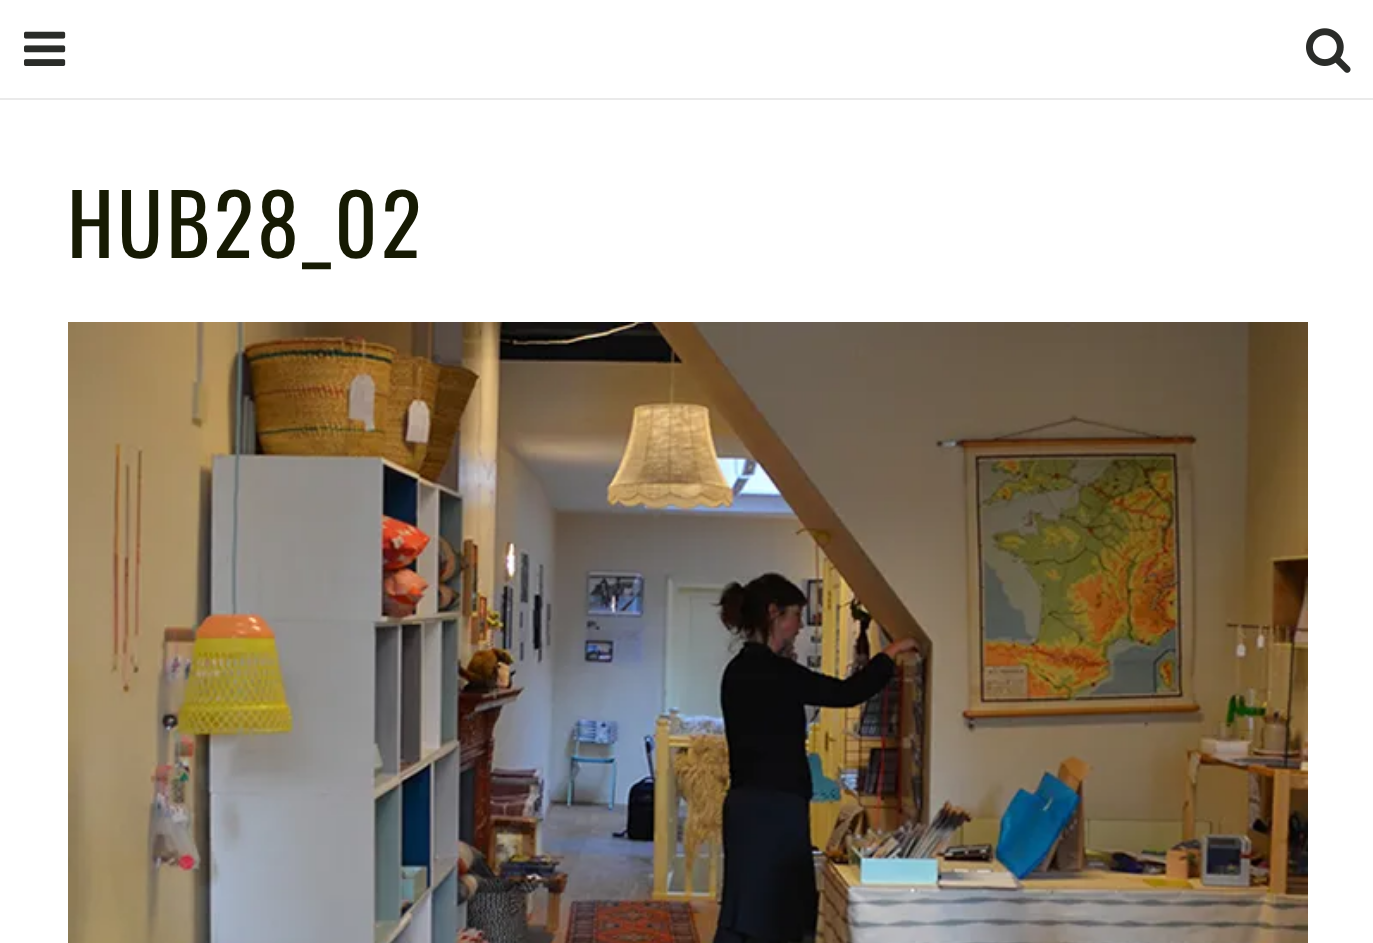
(async () => {
    const canvas = document.querySelector("canvas");
    canvas.width = 1373;
    canvas.height = 943;
    const context = canvas.getContext("2d");
    context.miterLimit = 4;
    context.fontKerning = "normal";
    function write(s, x, y, font, color) {
        context.font = font;
        context.fillStyle = color;
        context.fillText(s, x, y);
    }
    function block(x, y, w, h, color) {
        context.fillStyle = color;
        context.fillRect(x, y, w, h);
    }
    async function photo(src, x, y, w, h) {
        const img = new Image();
        img.src = src;
        await img.decode();
        context.drawImage(img, x, y, w, h);
    }

    block(0, 0, 1373, 943, "rgb(255, 255, 255)");
    await photo("media/1.png", 24, 31, 42, 35);
    await photo("media/2.png", 1306, 28, 45, 45);
    block(0, 98, 1373, 2, "rgb(234, 234, 234)");
    context.letterSpacing = "3.25px";
    write("HUB28_02", 67, 258, "84px Oswald", "rgb(22, 26, 3)");
    await photo("media/3.png", 68, 322, 1240, 621);
})();
